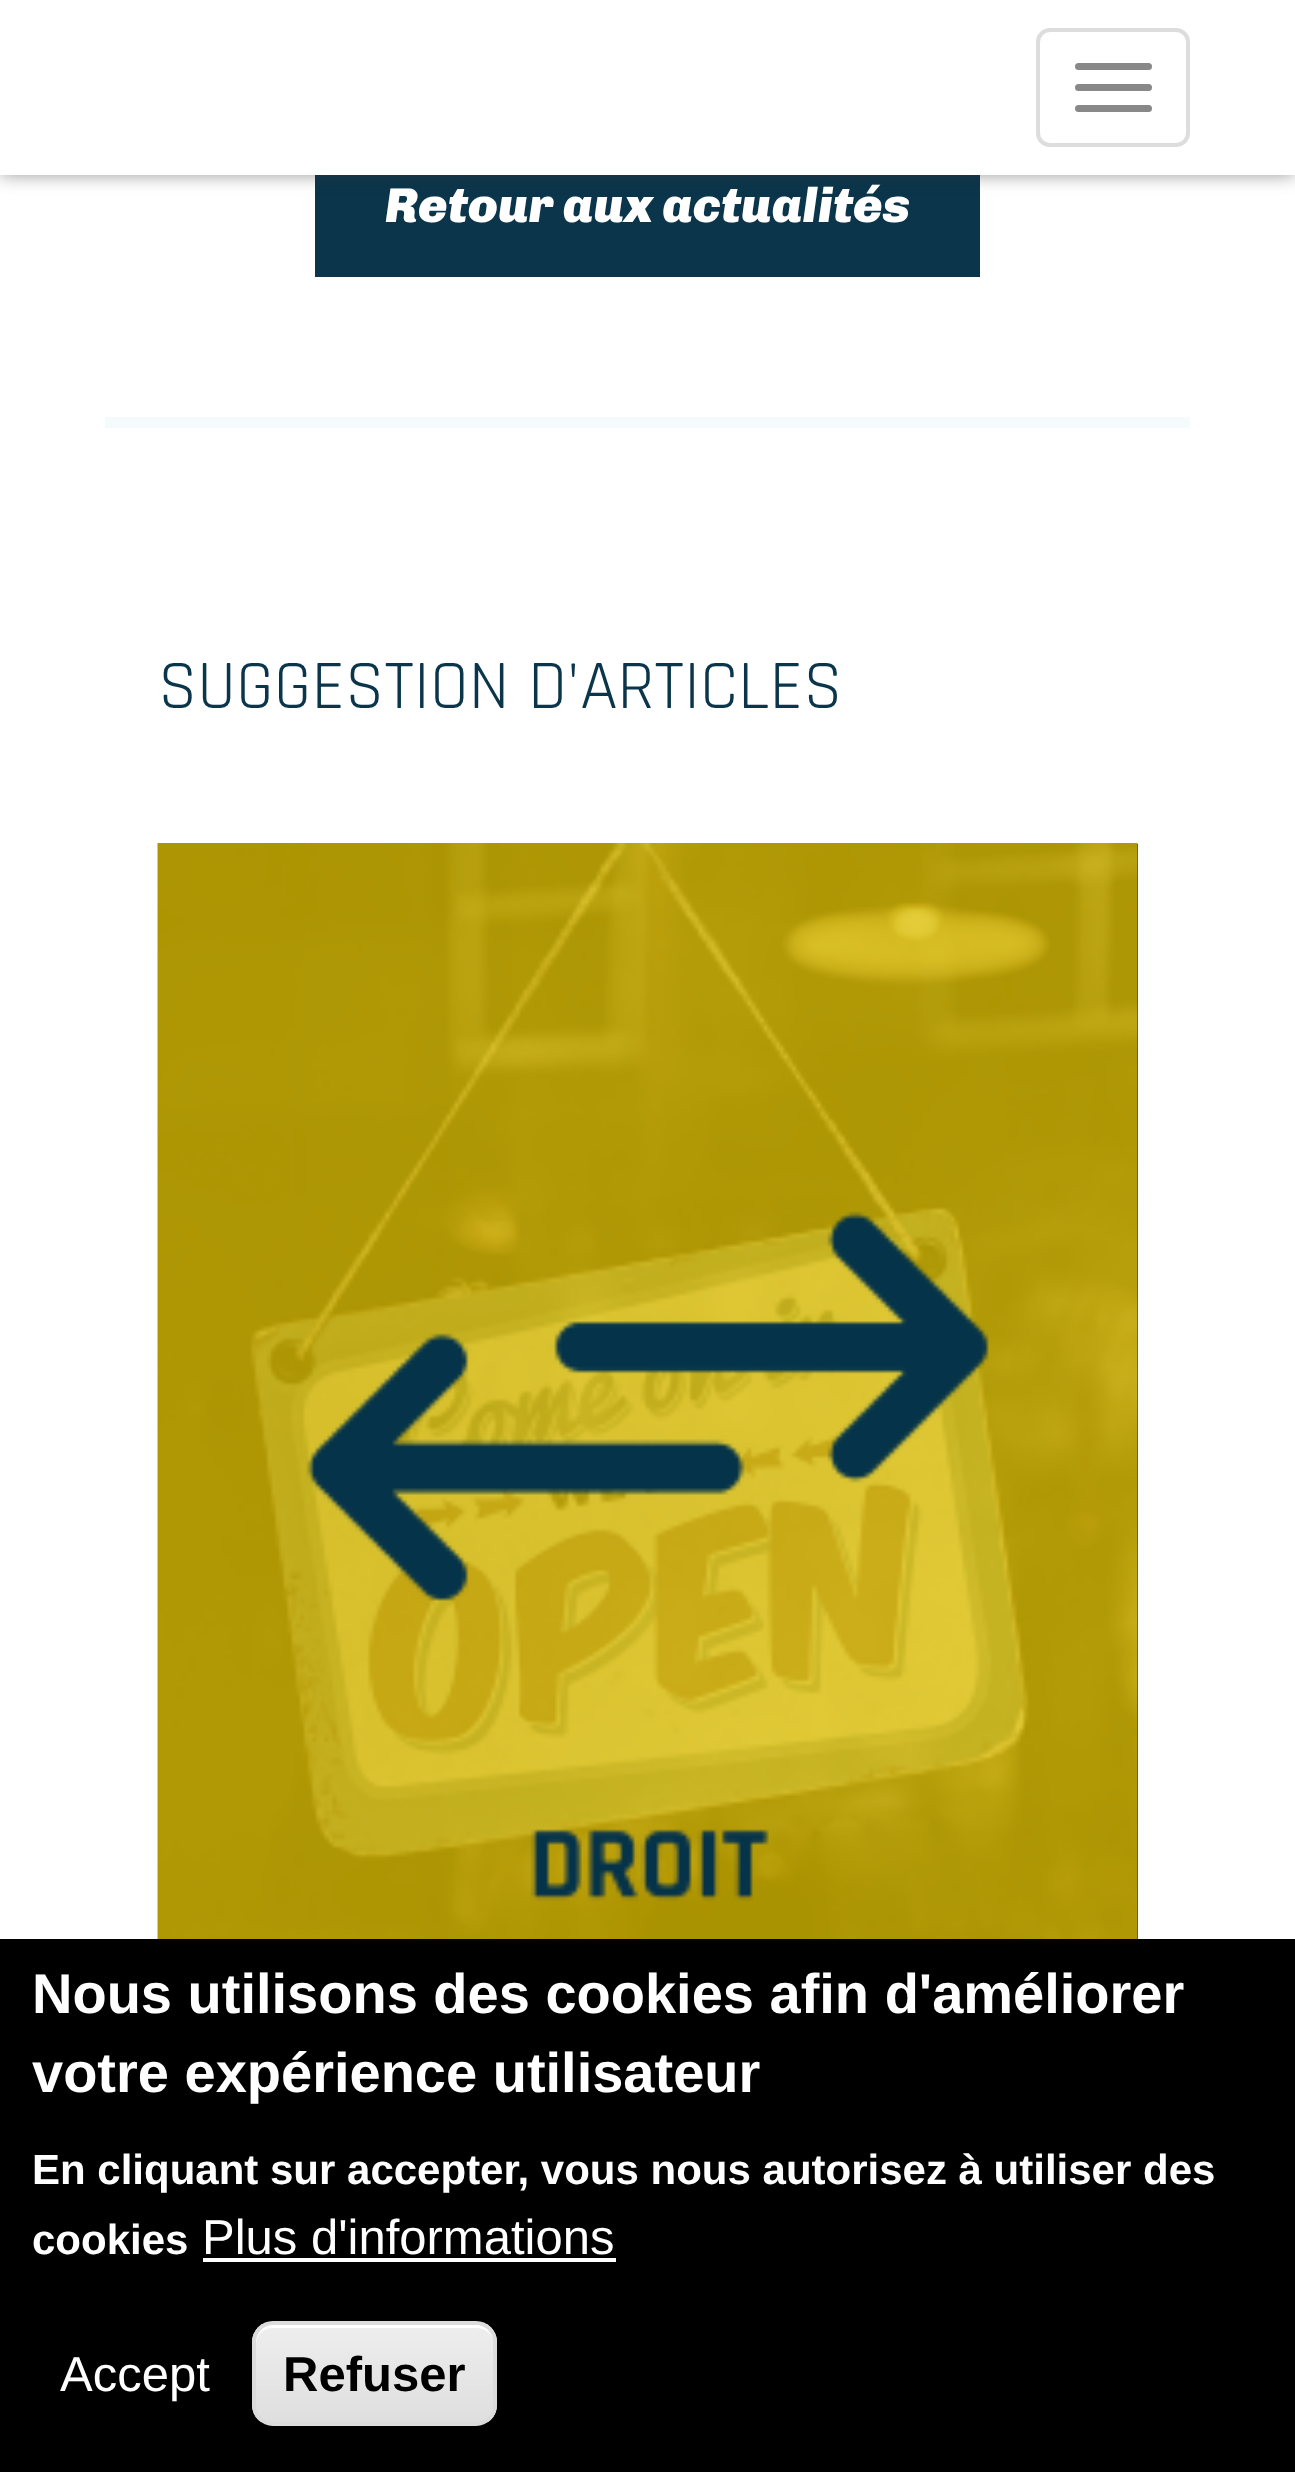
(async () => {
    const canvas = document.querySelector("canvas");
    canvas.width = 1295;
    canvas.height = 2472;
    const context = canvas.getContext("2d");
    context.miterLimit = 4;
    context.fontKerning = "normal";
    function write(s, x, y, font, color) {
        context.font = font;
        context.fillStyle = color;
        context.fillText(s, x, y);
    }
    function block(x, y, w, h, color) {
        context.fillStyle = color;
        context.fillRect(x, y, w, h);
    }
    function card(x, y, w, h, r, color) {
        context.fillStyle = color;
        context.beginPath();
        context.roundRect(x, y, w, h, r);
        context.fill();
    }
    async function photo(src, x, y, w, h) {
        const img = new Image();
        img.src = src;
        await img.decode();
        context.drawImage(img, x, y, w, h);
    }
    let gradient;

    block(0, 0, 1295, 2472, "rgb(255, 255, 255)");
    block(315, 175, 665, 102, "rgb(10, 53, 75)");
    context.fillStyle = "rgba(52, 52, 52, 0.5)";
    context.filter = "blur(9px)";
    context.beginPath();
    context.rect(0, 0, 1295, 175);
    context.fill();
    context.filter = "none";
    block(0, 0, 1295, 175, "rgb(255, 255, 255)");
    context.beginPath();
    context.roundRect(1038, 30, 150, 115, 12);
    context.strokeStyle = "rgb(221, 221, 221)";
    context.lineWidth = 4;
    context.stroke();
    card(1075, 63, 77, 7, 3.5, "rgb(136, 136, 136)");
    card(1075, 84, 77, 7, 3.5, "rgb(136, 136, 136)");
    card(1075, 105, 77, 7, 3.5, "rgb(136, 136, 136)");
    write("Retour aux actualités", 385, 222, "italic 500 49px Chivo", "rgb(255, 255, 255)");
    block(105, 417, 1085, 11, "rgb(245, 250, 252)");
    write("SUGGESTION D'ARTICLES", 158, 708, "70px Rajdhani", "rgb(10, 53, 75)");
    block(1137, 844, 1, 1095, "rgb(10, 53, 75)");
    await photo("media/1.png", 157, 843, 981, 1096);
    block(0, 1939, 1295, 533, "rgb(0, 0, 0)");
    write("Nous utilisons des cookies afin d'améliorer", 32, 2013, "bold 56px Liberation Sans", "rgb(255, 255, 255)");
    write("votre expérience utilisateur", 32, 2092, "bold 56px Liberation Sans", "rgb(255, 255, 255)");
    write("En cliquant sur accepter, vous nous autorisez à utiliser des", 32, 2184, "bold 42px Liberation Sans", "rgb(255, 255, 255)");
    write("cookies", 32, 2254, "bold 42px Liberation Sans", "rgb(255, 255, 255)");
    write("Plus d'informations", 202, 2254, "49px Liberation Sans", "rgb(255, 255, 255)");
    block(203, 2258, 413, 4, "rgb(255, 255, 255)");
    write("Accept", 60, 2391, "49px Liberation Sans", "rgb(255, 255, 255)");
    context.save();
    context.beginPath();
    context.roundRect(252, 2321, 245, 105, 21);
    context.clip();
    gradient = context.createLinearGradient(375, 2324, 375, 2422);
    gradient.addColorStop(0.05, "rgb(237, 237, 237)");
    gradient.addColorStop(1, "rgb(223, 223, 223)");
    context.fillStyle = gradient;
    context.fillRect(252, 2324, 245, 98);
    context.restore();
    context.beginPath();
    context.moveTo(273, 2328);
    context.lineTo(476, 2328);
    context.bezierCurveTo(486, 2328, 494, 2335, 494, 2345);
    context.lineTo(494, 2342);
    context.bezierCurveTo(494, 2332, 486, 2324, 476, 2324);
    context.lineTo(274, 2324);
    context.bezierCurveTo(264, 2324, 256, 2332, 256, 2342);
    context.lineTo(256, 2345);
    context.bezierCurveTo(256, 2335, 263, 2328, 273, 2328);
    context.closePath();
    context.fill();
    context.beginPath();
    context.roundRect(254, 2323, 241, 101, 19);
    context.strokeStyle = "rgb(220, 220, 220)";
    context.stroke();
    write("Refuser", 283, 2391, "bold 49px Liberation Sans", "rgb(0, 0, 0)");
})();
